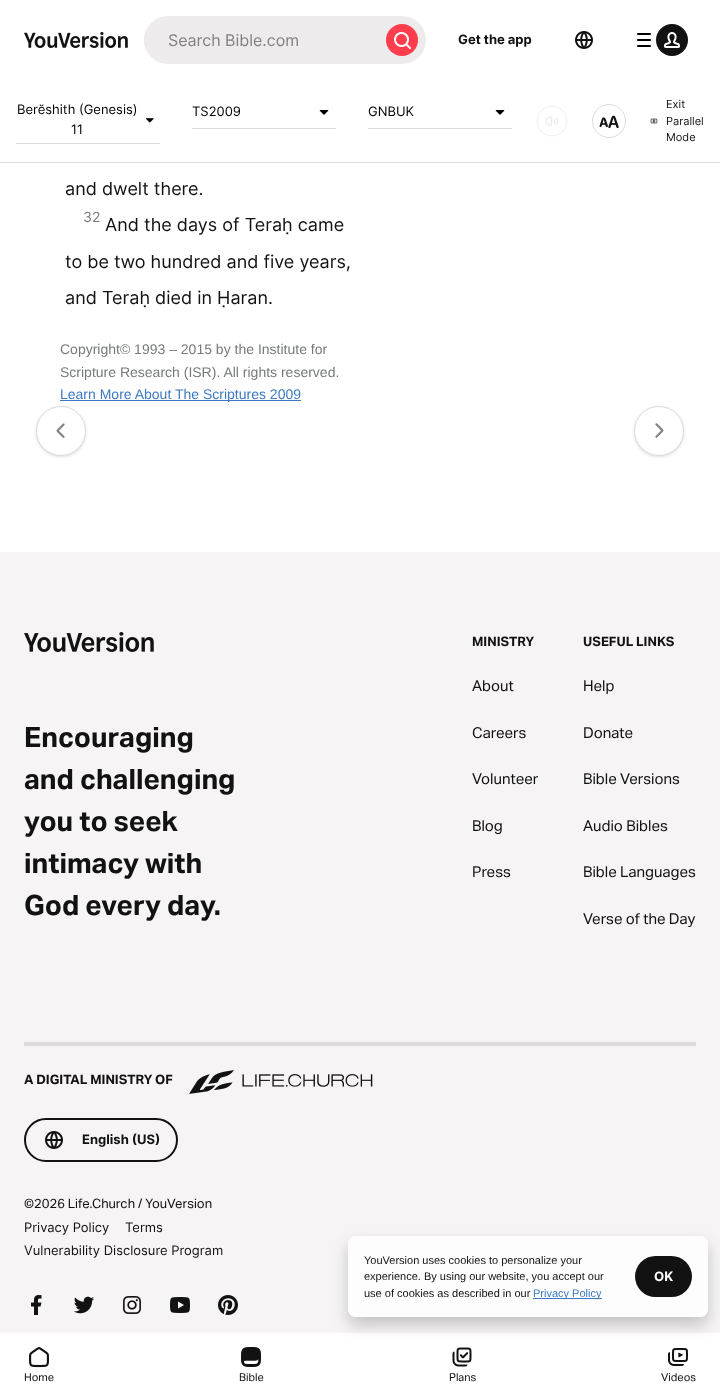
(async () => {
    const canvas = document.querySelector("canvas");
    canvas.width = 720;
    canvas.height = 1397;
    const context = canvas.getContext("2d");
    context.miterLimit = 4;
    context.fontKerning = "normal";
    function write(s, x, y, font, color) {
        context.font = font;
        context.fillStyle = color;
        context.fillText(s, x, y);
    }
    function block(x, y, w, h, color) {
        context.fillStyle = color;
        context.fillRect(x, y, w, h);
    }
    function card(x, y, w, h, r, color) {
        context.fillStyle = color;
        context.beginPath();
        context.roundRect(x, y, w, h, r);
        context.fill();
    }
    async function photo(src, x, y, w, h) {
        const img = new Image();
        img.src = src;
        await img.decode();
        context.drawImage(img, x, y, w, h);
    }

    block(0, 0, 720, 1397, "rgb(255, 255, 255)");
    await photo("media/1.png", 24, 32, 104, 16);
    card(144, 16, 282, 48, 24, "rgb(237, 235, 235)");
    card(144, 24, 234, 32, 16, "rgb(237, 235, 235)");
    write("Search Bible.com", 168, 46, "16px Inter", "rgb(130, 128, 128)");
    context.fillStyle = "rgb(255, 61, 77)";
    context.beginPath();
    context.arc(402, 40, 16, 0, Math.PI * 2);
    context.fill();
    await photo("media/2.png", 394, 32, 17, 17);
    write("Get the app", 458, 44, "bold 13px Inter", "rgb(18, 18, 18)");
    await photo("media/3.png", 575, 31, 18, 18);
    await photo("media/4.png", 637, 33, 14, 14);
    context.beginPath();
    context.arc(672, 40, 16, 0, Math.PI * 2);
    context.fill();
    await photo("media/5.png", 664, 32, 16, 16);
    block(0, 162, 720, 1, "rgb(221, 219, 219)");
    block(16, 143, 144, 1, "rgb(221, 219, 219)");
    write("Berĕshith (Genesis)", 17, 114, "13px Inter", "rgb(0, 0, 0)");
    await photo("media/6.png", 146, 118, 8, 5);
    write("11", 71, 134, "13px Inter", "rgb(0, 0, 0)");
    block(192, 128, 144, 1, "rgb(221, 219, 219)");
    write("TS2009", 192, 116, "13px Inter", "rgb(0, 0, 0)");
    await photo("media/7.png", 319, 110, 10, 5);
    block(368, 128, 144, 1, "rgb(221, 219, 219)");
    write("GNBUK", 368, 116, "13px Inter", "rgb(0, 0, 0)");
    await photo("media/7.png", 495, 110, 10, 5);
    await photo("media/8.png", 545, 116, 13, 11);
    context.beginPath();
    context.arc(552, 121, 15, 0, Math.PI * 2);
    context.strokeStyle = "rgb(237, 239, 239)";
    context.stroke();
    context.beginPath();
    context.arc(609, 121, 16.5, 0, Math.PI * 2);
    context.strokeStyle = "rgb(221, 219, 219)";
    context.stroke();
    await photo("media/9.png", 599, 115, 20, 14);
    write("Exit", 666, 108, "11px Inter", "rgb(18, 18, 18)");
    await photo("media/10.png", 650, 118, 8, 6);
    write("Parallel", 666, 125, "11px Inter", "rgb(18, 18, 18)");
    write("Mode", 666, 141, "11px Inter", "rgb(18, 18, 18)");
    write("and dwelt there.", 65, 195, "18px Inter", "rgb(18, 18, 18)");
    write("32", 83, 222, "14px Inter", "rgb(119, 122, 123)");
    write("And the days of Teraḥ came", 105, 231, "18px Inter", "rgb(18, 18, 18)");
    write("to be two hundred and five years,", 65, 268, "18px Inter", "rgb(18, 18, 18)");
    write("and Teraḥ died in Ḥaran.", 65, 304, "18px Inter", "rgb(18, 18, 18)");
    write("Copyright© 1993 – 2015 by the Institute for", 60, 354, "14px Liberation Sans", "rgb(119, 122, 123)");
    write("Scripture Research (ISR). All rights reserved.", 60, 377, "14px Liberation Sans", "rgb(119, 122, 123)");
    block(60, 400, 241, 1, "rgb(61, 121, 194)");
    write("Learn More About The Scriptures 2009", 60, 399, "14px Liberation Sans", "rgb(61, 121, 194)");
    context.fillStyle = "rgba(18, 18, 18, 0.15)";
    context.filter = "blur(1.5px)";
    context.beginPath();
    context.roundRect(36, 407, 50, 50, 25);
    context.fill();
    context.filter = "none";
    context.fillStyle = "rgb(255, 255, 255)";
    context.beginPath();
    context.arc(61, 431, 24.5, 0, Math.PI * 2);
    context.fill();
    context.stroke();
    await photo("media/11.png", 56, 423, 9, 15);
    context.fillStyle = "rgba(18, 18, 18, 0.15)";
    context.filter = "blur(1.5px)";
    context.beginPath();
    context.roundRect(634, 407, 50, 50, 25);
    context.fill();
    context.filter = "none";
    context.fillStyle = "rgb(255, 255, 255)";
    context.beginPath();
    context.arc(659, 431, 24.5, 0, Math.PI * 2);
    context.fill();
    context.stroke();
    await photo("media/12.png", 655, 423, 9, 15);
    block(0, 552, 720, 781, "rgb(246, 244, 244)");
    await photo("media/13.png", 24, 632, 130, 20);
    write("Encouraging", 24, 747, "bold 28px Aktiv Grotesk", "rgb(18, 18, 18)");
    write("and challenging", 24, 789, "bold 28px Aktiv Grotesk", "rgb(18, 18, 18)");
    write("you to seek", 24, 831, "bold 28px Aktiv Grotesk", "rgb(18, 18, 18)");
    write("intimacy with", 24, 873, "bold 28px Aktiv Grotesk", "rgb(18, 18, 18)");
    write("God every day.", 24, 915, "bold 28px Aktiv Grotesk", "rgb(18, 18, 18)");
    write("MINISTRY", 472, 646, "bold 13px Aktiv Grotesk", "rgb(18, 18, 18)");
    write("About", 472, 691, "15px Aktiv Grotesk", "rgb(18, 18, 18)");
    write("Careers", 472, 738, "15px Aktiv Grotesk", "rgb(18, 18, 18)");
    write("Volunteer", 472, 784, "15px Aktiv Grotesk", "rgb(18, 18, 18)");
    write("Blog", 472, 831, "15px Aktiv Grotesk", "rgb(18, 18, 18)");
    write("Press", 472, 877, "15px Aktiv Grotesk", "rgb(18, 18, 18)");
    write("USEFUL LINKS", 583, 646, "bold 13px Aktiv Grotesk", "rgb(18, 18, 18)");
    write("Help", 583, 691, "15px Aktiv Grotesk", "rgb(18, 18, 18)");
    write("Donate", 583, 738, "15px Aktiv Grotesk", "rgb(18, 18, 18)");
    write("Bible Versions", 583, 784, "15px Aktiv Grotesk", "rgb(18, 18, 18)");
    write("Audio Bibles", 583, 831, "15px Aktiv Grotesk", "rgb(18, 18, 18)");
    write("Bible Languages", 583, 877, "15px Aktiv Grotesk", "rgb(18, 18, 18)");
    write("Verse of the Day", 583, 924, "15px Aktiv Grotesk", "rgb(18, 18, 18)");
    block(24, 1042, 672, 4, "rgb(221, 219, 219)");
    write("A DIGITAL MINISTRY OF", 24, 1084, "bold 13px Aktiv Grotesk", "rgb(18, 18, 18)");
    await photo("media/14.png", 189, 1070, 184, 24);
    context.beginPath();
    context.roundRect(25, 1119, 152, 42, 21);
    context.strokeStyle = "rgb(18, 18, 18)";
    context.lineWidth = 2;
    context.stroke();
    await photo("media/15.png", 45, 1131, 18, 18);
    write("English (US)", 82, 1144, "bold 13px Inter", "rgb(18, 18, 18)");
    write("©2026 Life.Church / YouVersion", 24, 1208, "13px Aktiv Grotesk", "rgb(18, 18, 18)");
    write("Privacy Policy", 24, 1232, "13px Inter", "rgb(18, 18, 18)");
    write("Terms", 125, 1232, "13px Inter", "rgb(18, 18, 18)");
    write("Vulnerability Disclosure Program", 24, 1255, "13px Inter", "rgb(18, 18, 18)");
    await photo("media/16.png", 31, 1295, 11, 20);
    await photo("media/17.png", 74, 1296, 20, 18);
    await photo("media/18.png", 123, 1296, 18, 18);
    await photo("media/19.png", 170, 1297, 20, 16);
    await photo("media/20.png", 218, 1295, 20, 20);
    await photo("media/23.png", 452, 1347, 20, 20);
    await photo("media/24.png", 668, 1348, 20, 18);
    context.save();
    context.beginPath();
    context.moveTo(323, 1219);
    context.lineTo(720, 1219);
    context.lineTo(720, 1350);
    context.lineTo(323, 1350);
    context.closePath();
    context.moveTo(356, 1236);
    context.lineTo(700, 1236);
    context.bezierCurveTo(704.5, 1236, 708, 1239.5, 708, 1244);
    context.lineTo(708, 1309);
    context.bezierCurveTo(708, 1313.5, 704.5, 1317, 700, 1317);
    context.lineTo(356, 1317);
    context.bezierCurveTo(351.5, 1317, 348, 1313.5, 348, 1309);
    context.lineTo(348, 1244);
    context.bezierCurveTo(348, 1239.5, 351.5, 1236, 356, 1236);
    context.closePath();
    context.clip("evenodd");
    context.fillStyle = "rgba(0, 0, 0, 0.2)";
    context.filter = "blur(8px)";
    context.beginPath();
    context.roundRect(348, 1244, 360, 81, 8);
    context.fill();
    context.filter = "none";
    context.restore();
    card(348, 1236, 360, 81, 8, "rgba(255, 255, 255, 0.8)");
    write("YouVersion uses cookies to personalize your", 364, 1264, "11px Liberation Sans", "rgb(18, 18, 18)");
    write("experience. By using our website, you accept our", 364, 1280, "11px Liberation Sans", "rgb(18, 18, 18)");
    write("use of cookies as described in our", 364, 1297, "11px Liberation Sans", "rgb(18, 18, 18)");
    block(533, 1298, 69, 1, "rgb(61, 121, 194)");
    write("Privacy Policy", 533, 1297, "11px Liberation Sans", "rgb(61, 121, 194)");
    card(635, 1256, 57, 41, 20.5, "rgb(18, 18, 18)");
    write("OK", 654, 1281, "bold 13px Inter", "rgb(255, 255, 255)");
    await photo("media/21.png", 29, 1347, 20, 21);
    write("Home", 24, 1381, "11px Aktiv Grotesk", "rgb(18, 18, 18)");
    await photo("media/22.png", 241, 1347, 20, 20);
    write("Bible", 239, 1381, "11px Aktiv Grotesk", "rgb(18, 18, 18)");
    write("Plans", 449, 1381, "11px Aktiv Grotesk", "rgb(18, 18, 18)");
    write("Videos", 661, 1381, "11px Aktiv Grotesk", "rgb(18, 18, 18)");
})();
